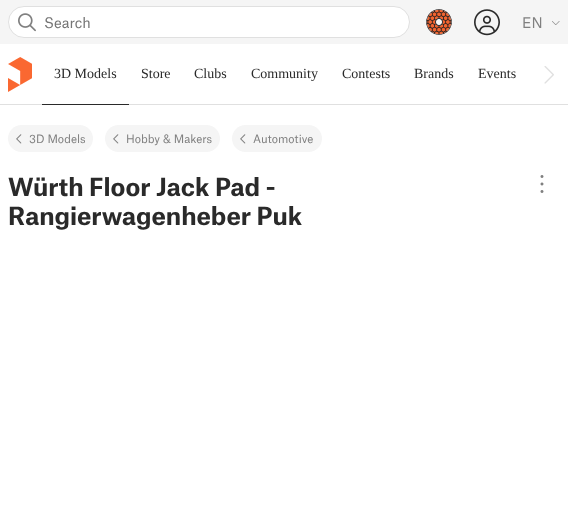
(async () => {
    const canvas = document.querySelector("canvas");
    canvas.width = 568;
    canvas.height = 507;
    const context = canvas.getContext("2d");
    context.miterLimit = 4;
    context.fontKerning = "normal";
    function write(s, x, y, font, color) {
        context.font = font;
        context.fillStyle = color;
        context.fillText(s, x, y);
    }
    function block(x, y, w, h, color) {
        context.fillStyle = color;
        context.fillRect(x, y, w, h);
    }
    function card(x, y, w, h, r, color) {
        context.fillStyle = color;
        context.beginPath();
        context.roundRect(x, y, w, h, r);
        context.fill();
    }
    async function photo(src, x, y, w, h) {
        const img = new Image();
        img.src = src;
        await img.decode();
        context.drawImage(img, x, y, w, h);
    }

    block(0, 0, 568, 507, "rgb(255, 255, 255)");
    block(0, 0, 568, 44, "rgb(245, 245, 245)");
    context.fillStyle = "rgb(255, 255, 255)";
    context.beginPath();
    context.roundRect(8.5, 6.5, 401, 31, 15.5);
    context.fill();
    context.strokeStyle = "rgb(224, 224, 224)";
    context.stroke();
    await photo("media/1.png", 18, 13, 18, 19);
    write("Search", 44, 28, "14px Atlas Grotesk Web", "rgb(117, 117, 117)");
    await photo("media/2.png", 426, 9, 26, 26);
    await photo("media/3.png", 474, 9, 26, 27);
    write("EN", 522, 28, "14px Atlas Grotesk Web", "rgb(128, 128, 128)");
    await photo("media/4.png", 552, 21, 8, 4);
    block(0, 104, 568, 1, "rgb(224, 224, 224)");
    await photo("media/5.png", 8, 57, 24, 35);
    block(42, 104, 87, 1, "rgb(42, 42, 42)");
    write("3D Models", 54, 78, "14px Liberation Serif", "rgb(42, 42, 42)");
    write("Store", 141, 78, "14px Liberation Serif", "rgb(42, 42, 42)");
    write("Clubs", 194, 78, "14px Liberation Serif", "rgb(42, 42, 42)");
    write("Community", 251, 78, "14px Liberation Serif", "rgb(42, 42, 42)");
    write("Contests", 342, 78, "14px Liberation Serif", "rgb(42, 42, 42)");
    write("Brands", 414, 78, "14px Liberation Serif", "rgb(42, 42, 42)");
    write("Events", 478, 78, "14px Liberation Serif", "rgb(42, 42, 42)");
    await photo("media/6.png", 544, 66, 10, 18);
    card(8, 125, 85, 27, 13.5, "rgb(245, 245, 245)");
    await photo("media/7.png", 16, 134, 6, 10);
    write("3D Models", 29, 143, "11px Atlas Grotesk Web", "rgb(128, 128, 128)");
    card(105, 125, 115, 27, 13.5, "rgb(245, 245, 245)");
    await photo("media/7.png", 113, 134, 6, 10);
    write("Hobby & Makers", 126, 143, "11px Atlas Grotesk Web", "rgb(128, 128, 128)");
    card(232, 125, 90, 27, 13.5, "rgb(245, 245, 245)");
    await photo("media/7.png", 240, 134, 6, 10);
    write("Automotive", 253, 143, "11px Atlas Grotesk Web", "rgb(128, 128, 128)");
    write("Würth Floor Jack Pad -", 8, 196, "bold 24px Atlas Grotesk Web", "rgb(42, 42, 42)");
    write("Rangierwagenheber Puk", 8, 225, "bold 24px Atlas Grotesk Web", "rgb(42, 42, 42)");
    await photo("media/8.png", 540, 175, 4, 18);
})();
